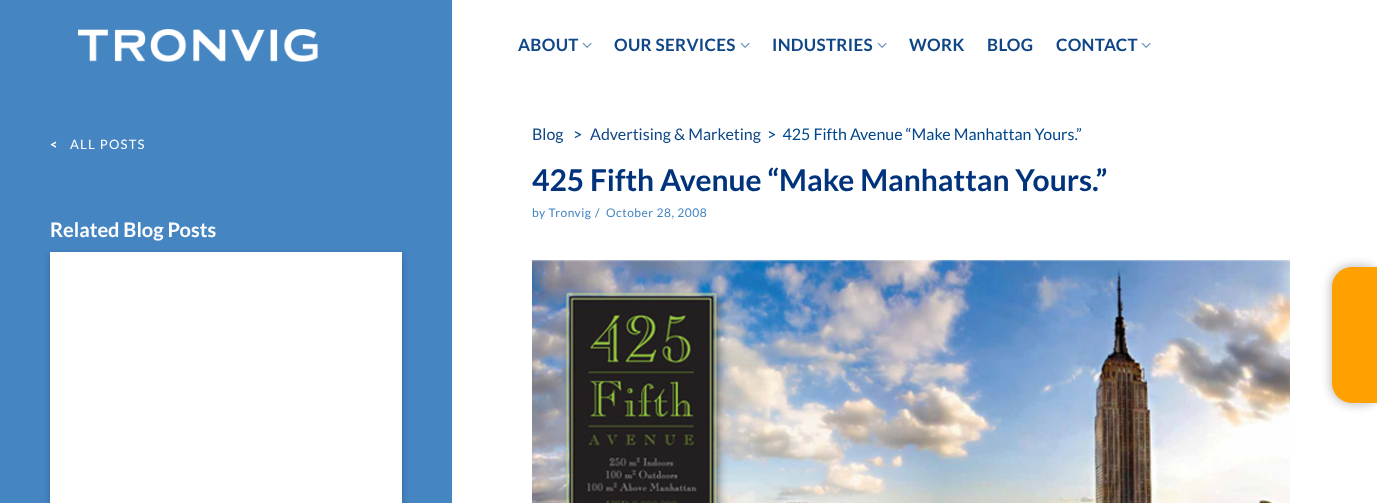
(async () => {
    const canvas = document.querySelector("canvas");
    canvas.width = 1377;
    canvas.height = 503;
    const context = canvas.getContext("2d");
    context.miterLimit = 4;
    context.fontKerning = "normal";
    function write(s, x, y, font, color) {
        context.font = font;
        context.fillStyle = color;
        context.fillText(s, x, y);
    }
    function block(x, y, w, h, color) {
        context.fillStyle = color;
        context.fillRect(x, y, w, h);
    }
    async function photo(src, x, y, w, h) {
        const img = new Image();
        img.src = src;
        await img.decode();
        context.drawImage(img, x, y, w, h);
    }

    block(0, 0, 1377, 503, "rgb(255, 255, 255)");
    block(0, 0, 452, 503, "rgb(68, 133, 194)");
    await photo("media/1.png", 78, 29, 241, 33);
    context.letterSpacing = "0.3px";
    write("ABOUT", 518, 51, "bold 17px Lato", "rgb(15, 70, 135)");
    await photo("media/2.png", 582, 42, 10, 6);
    write("OUR SERVICES", 614, 51, "bold 17px Lato", "rgb(15, 70, 135)");
    await photo("media/2.png", 740, 42, 10, 6);
    write("INDUSTRIES", 772, 51, "bold 17px Lato", "rgb(15, 70, 135)");
    await photo("media/2.png", 877, 42, 10, 6);
    write("WORK", 909, 51, "bold 17px Lato", "rgb(15, 70, 135)");
    write("BLOG", 987, 51, "bold 17px Lato", "rgb(15, 70, 135)");
    write("CONTACT", 1056, 51, "bold 17px Lato", "rgb(15, 70, 135)");
    await photo("media/2.png", 1141, 42, 10, 6);
    context.letterSpacing = "1.25px";
    write("<", 50, 149, "bold 13px Lato", "rgb(255, 255, 255)");
    write("ALL POSTS", 70, 149, "13px Lato", "rgb(255, 255, 255)");
    context.letterSpacing = "0px";
    write("Related Blog Posts", 50, 237, "bold 20px Lato", "rgb(255, 255, 255)");
    context.fillStyle = "rgba(0, 0, 0, 0.23)";
    context.filter = "blur(3px)";
    context.beginPath();
    context.rect(50, 255, 352, 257);
    context.fill();
    context.filter = "none";
    block(50, 252, 352, 251, "rgb(255, 255, 255)");
    write("Blog", 532, 140, "16px Lato", "rgb(15, 70, 135)");
    write(">", 573, 140, "16px Lato", "rgb(0, 70, 139)");
    write("Advertising & Marketing", 590, 140, "16px Lato", "rgb(15, 70, 135)");
    write(">  425 Fifth Avenue “Make Manhattan Yours.”", 767, 140, "16px Lato", "rgb(0, 70, 139)");
    write("425 Fifth Avenue “Make Manhattan Yours.”", 532, 191, "bold 30px Lato", "rgb(0, 51, 123)");
    context.letterSpacing = "0.5px";
    write("by Tronvig", 532, 217, "12px Lato", "rgb(68, 133, 194)");
    write("/", 595, 217, "12px Lato", "rgb(68, 133, 194)");
    write("October 28, 2008", 606, 217, "12px Lato", "rgb(68, 133, 194)");
    await photo("media/3.png", 532, 260, 758, 243);
    context.fillStyle = "rgba(0, 0, 0, 0.23)";
    context.filter = "blur(5px)";
    context.beginPath();
    context.roundRect(1330, 265, 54, 140, 22);
    context.fill();
    context.filter = "none";
    context.fillStyle = "rgb(255, 161, 0)";
    context.beginPath();
    context.moveTo(1352, 267);
    context.lineTo(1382, 267);
    context.lineTo(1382, 403);
    context.lineTo(1352, 403);
    context.bezierCurveTo(1341, 403, 1332, 394, 1332, 383);
    context.lineTo(1332, 287);
    context.bezierCurveTo(1332, 276, 1341, 267, 1352, 267);
    context.closePath();
    context.fill();
})();
